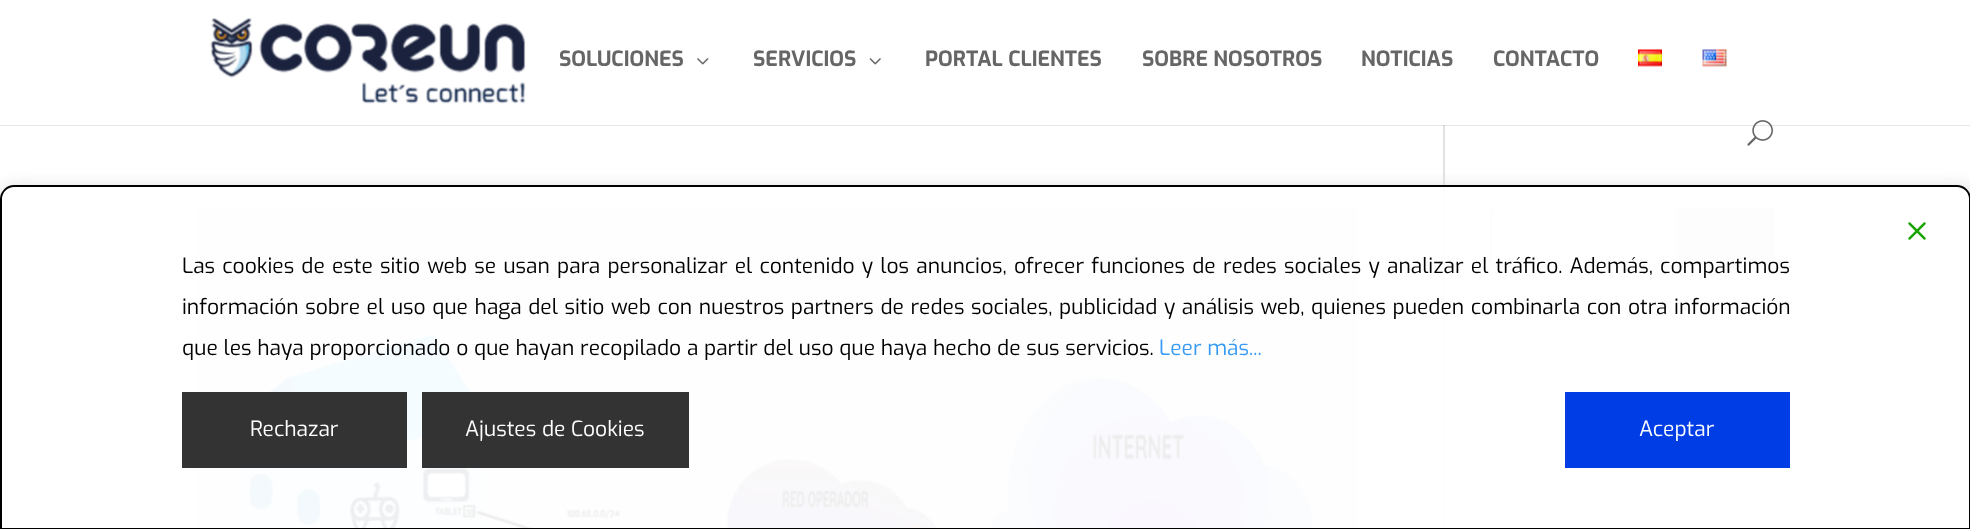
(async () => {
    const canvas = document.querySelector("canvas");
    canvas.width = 1970;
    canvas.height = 529;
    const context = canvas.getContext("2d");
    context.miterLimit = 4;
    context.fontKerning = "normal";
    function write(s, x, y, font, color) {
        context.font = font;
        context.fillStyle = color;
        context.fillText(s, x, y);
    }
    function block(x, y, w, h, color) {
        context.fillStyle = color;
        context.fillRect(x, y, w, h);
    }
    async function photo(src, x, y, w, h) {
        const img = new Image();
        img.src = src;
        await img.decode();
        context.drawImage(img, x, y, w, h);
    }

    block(0, 0, 1970, 529, "rgb(255, 255, 255)");
    block(0, 125, 1970, 1, "rgb(230, 230, 230)");
    block(1443, 120, 2, 409, "rgb(226, 226, 226)");
    block(1443, 120, 2, 5, "rgb(255, 255, 255)");
    await photo("media/1.png", 210, 18, 316, 86);
    write("SOLUCIONES", 559, 66, "bold 21px Exo", "rgb(102, 102, 102)");
    await photo("media/2.png", 697, 58, 12, 7);
    write("SERVICIOS", 753, 66, "bold 21px Exo", "rgb(102, 102, 102)");
    await photo("media/3.png", 869, 58, 12, 7);
    write("PORTAL CLIENTES", 925, 66, "bold 21px Exo", "rgb(102, 102, 102)");
    write("SOBRE NOSOTROS", 1142, 66, "bold 21px Exo", "rgb(102, 102, 102)");
    write("NOTICIAS", 1361, 66, "bold 21px Exo", "rgb(102, 102, 102)");
    write("CONTACTO", 1493, 66, "bold 21px Exo", "rgb(102, 102, 102)");
    await photo("media/4.png", 1638, 49, 24, 18);
    await photo("media/5.png", 1702, 49, 25, 18);
    await photo("media/6.png", 1747, 120, 26, 26);
    block(1443, 125, 2, 1, "rgb(203, 203, 203)");
    await photo("media/7.png", 196, 207, 1162, 321);
    context.beginPath();
    context.roundRect(1491, 208, 283, 58, 4);
    context.strokeStyle = "rgb(221, 221, 221)";
    context.lineWidth = 2;
    context.stroke();
    context.fillStyle = "rgb(221, 221, 221)";
    context.beginPath();
    context.roundRect(1677, 208, 97, 58, [0, 4, 4, 0]);
    context.fill();
    context.stroke();
    context.save();
    context.beginPath();
    context.moveTo(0, 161);
    context.lineTo(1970, 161);
    context.lineTo(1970, 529);
    context.lineTo(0, 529);
    context.closePath();
    context.moveTo(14, 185);
    context.lineTo(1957, 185);
    context.bezierCurveTo(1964.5, 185, 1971, 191.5, 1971, 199);
    context.lineTo(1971, 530);
    context.lineTo(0, 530);
    context.lineTo(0, 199);
    context.bezierCurveTo(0, 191.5, 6.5, 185, 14, 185);
    context.closePath();
    context.clip("evenodd");
    context.filter = "blur(8px)";
    context.beginPath();
    context.roundRect(-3, 186, 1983, 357, 20);
    context.fill();
    context.filter = "none";
    context.restore();
    context.fillStyle = "rgba(255, 255, 255, 0.93)";
    context.beginPath();
    context.moveTo(14, 186);
    context.lineTo(1957, 186);
    context.bezierCurveTo(1964, 186, 1970, 192, 1970, 199);
    context.lineTo(1970, 529);
    context.lineTo(1, 529);
    context.lineTo(1, 199);
    context.bezierCurveTo(1, 192, 7, 186, 14, 186);
    context.closePath();
    context.fill();
    context.strokeStyle = "rgb(0, 0, 0)";
    context.stroke();
    await photo("media/8.png", 1908, 222, 18, 18);
    context.wordSpacing = "1.5px";
    write("Las cookies de este sitio web se usan para personalizar el contenido y los anuncios, ofrecer funciones de redes sociales y analizar el tráfico. Además, compartimos", 182, 273, "21px Exo", "rgb(0, 0, 0)");
    context.wordSpacing = "0.9px";
    write("información sobre el uso que haga del sitio web con nuestros partners de redes sociales, publicidad y análisis web, quienes pueden combinarla con otra información", 182, 314, "21px Exo", "rgb(0, 0, 0)");
    context.wordSpacing = "0px";
    write("que les haya proporcionado o que hayan recopilado a partir del uso que haya hecho de sus servicios.", 182, 355, "21px Exo", "rgb(0, 0, 0)");
    write("Leer más...", 1159, 355, "21px Exo", "rgb(53, 155, 245)");
    block(182, 392, 225, 76, "rgb(51, 51, 51)");
    write("Rechazar", 250, 436, "21px Exo", "rgb(255, 255, 255)");
    block(422, 392, 267, 76, "rgb(51, 51, 51)");
    write("Ajustes de Cookies", 465, 436, "21px Exo", "rgb(255, 255, 255)");
    block(1565, 392, 225, 76, "rgb(0, 61, 229)");
    write("Aceptar", 1639, 436, "21px Exo", "rgb(255, 255, 255)");
})();
